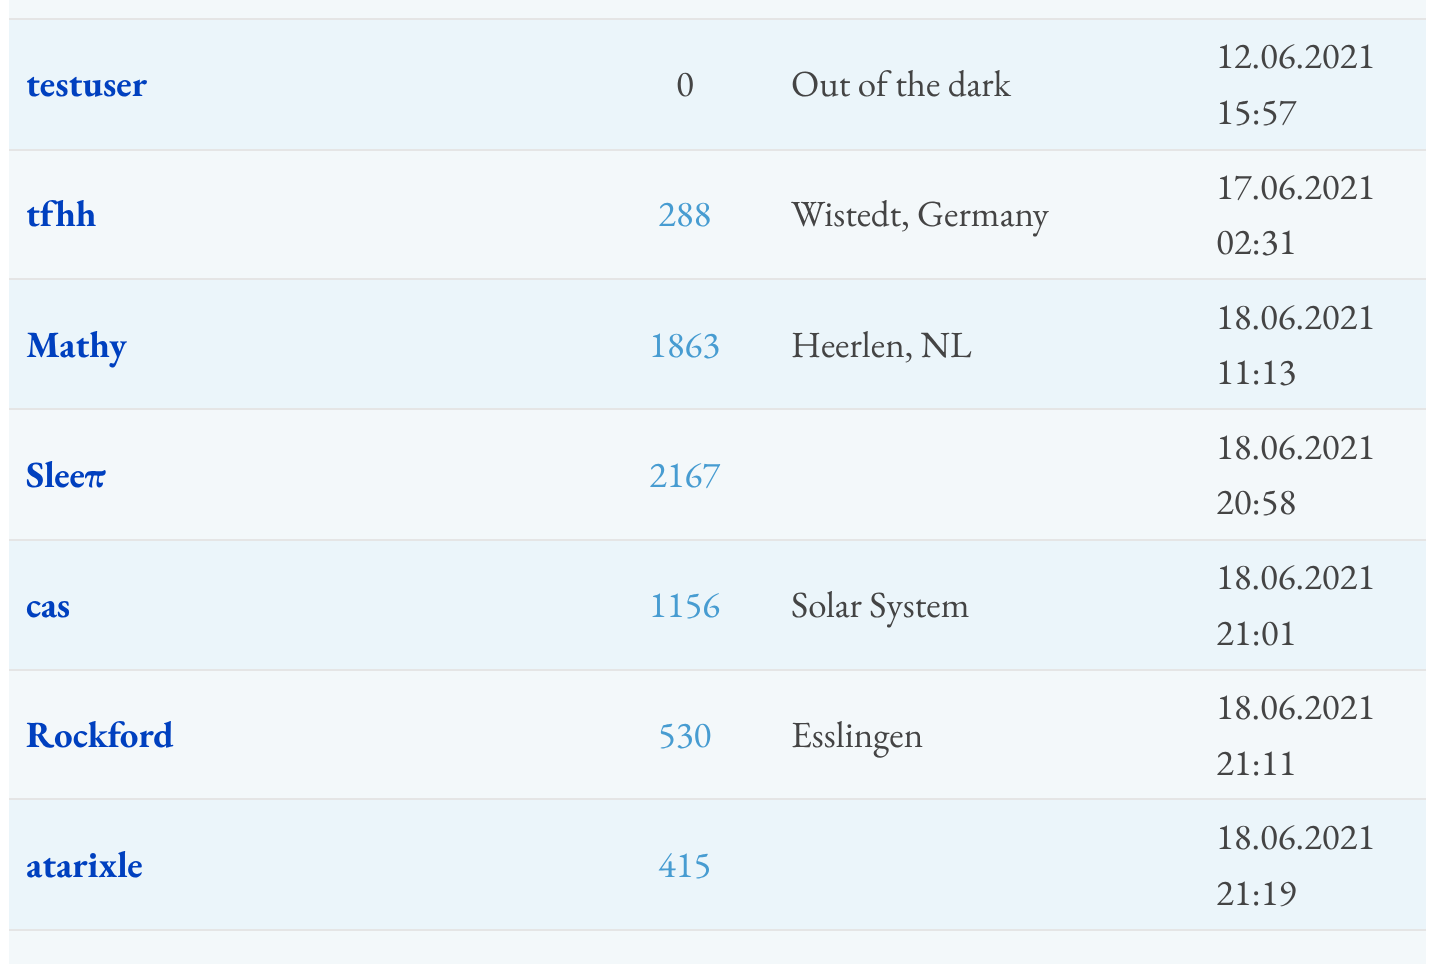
(async () => {
    const canvas = document.querySelector("canvas");
    canvas.width = 1448;
    canvas.height = 964;
    const context = canvas.getContext("2d");
    context.miterLimit = 4;
    context.fontKerning = "normal";
    function write(s, x, y, font, color) {
        context.font = font;
        context.fillStyle = color;
        context.fillText(s, x, y);
    }
    function block(x, y, w, h, color) {
        context.fillStyle = color;
        context.fillRect(x, y, w, h);
    }

    block(0, 0, 1448, 964, "rgb(255, 255, 255)");
    block(9, 0, 1417, 18, "rgb(243, 248, 250)");
    block(9, 18, 1417, 2, "rgb(229, 229, 229)");
    block(9, 20, 1417, 129, "rgb(235, 245, 250)");
    write("testuser", 26, 96, "bold 37px EB Garamond", "rgb(0, 64, 191)");
    write("0", 676, 96, "37px EB Garamond", "rgb(68, 68, 68)");
    write("Out of the dark", 791, 96, "37px EB Garamond", "rgb(68, 68, 68)");
    block(9, 149, 1417, 2, "rgb(229, 229, 229)");
    write("12.06.2021", 1216, 68, "37px EB Garamond", "rgb(68, 68, 68)");
    write("15:57", 1216, 124, "37px EB Garamond", "rgb(68, 68, 68)");
    block(9, 151, 1417, 127, "rgb(243, 248, 250)");
    write("tfhh", 26, 226, "bold 37px EB Garamond", "rgb(0, 64, 191)");
    write("288", 658, 226, "37px EB Garamond", "rgb(71, 156, 209)");
    write("Wistedt, Germany", 791, 226, "37px EB Garamond", "rgb(68, 68, 68)");
    block(9, 278, 1417, 2, "rgb(229, 229, 229)");
    write("17.06.2021", 1216, 199, "37px EB Garamond", "rgb(68, 68, 68)");
    write("02:31", 1216, 254, "37px EB Garamond", "rgb(68, 68, 68)");
    block(9, 280, 1417, 128, "rgb(235, 245, 250)");
    write("Mathy", 26, 357, "bold 37px EB Garamond", "rgb(0, 64, 191)");
    write("1863", 649, 357, "37px EB Garamond", "rgb(71, 156, 209)");
    write("Heerlen, NL", 791, 357, "37px EB Garamond", "rgb(68, 68, 68)");
    block(9, 408, 1417, 2, "rgb(229, 229, 229)");
    write("18.06.2021", 1216, 329, "37px EB Garamond", "rgb(68, 68, 68)");
    write("11:13", 1216, 384, "37px EB Garamond", "rgb(68, 68, 68)");
    block(9, 410, 1417, 129, "rgb(243, 248, 250)");
    write("Sleeπ", 26, 487, "bold 37px EB Garamond", "rgb(0, 64, 191)");
    write("2167", 649, 487, "37px EB Garamond", "rgb(71, 156, 209)");
    block(9, 539, 1417, 2, "rgb(229, 229, 229)");
    write("18.06.2021", 1216, 459, "37px EB Garamond", "rgb(68, 68, 68)");
    write("20:58", 1216, 514, "37px EB Garamond", "rgb(68, 68, 68)");
    block(9, 541, 1417, 128, "rgb(235, 245, 250)");
    write("cas", 26, 617, "bold 37px EB Garamond", "rgb(0, 64, 191)");
    write("1156", 649, 617, "37px EB Garamond", "rgb(71, 156, 209)");
    write("Solar System", 791, 617, "37px EB Garamond", "rgb(68, 68, 68)");
    block(9, 669, 1417, 2, "rgb(229, 229, 229)");
    write("18.06.2021", 1216, 589, "37px EB Garamond", "rgb(68, 68, 68)");
    write("21:01", 1216, 645, "37px EB Garamond", "rgb(68, 68, 68)");
    block(9, 671, 1417, 127, "rgb(243, 248, 250)");
    write("Rockford", 26, 747, "bold 37px EB Garamond", "rgb(0, 64, 191)");
    write("530", 658, 747, "37px EB Garamond", "rgb(71, 156, 209)");
    write("Esslingen", 791, 747, "37px EB Garamond", "rgb(68, 68, 68)");
    block(9, 798, 1417, 2, "rgb(229, 229, 229)");
    write("18.06.2021", 1216, 719, "37px EB Garamond", "rgb(68, 68, 68)");
    write("21:11", 1216, 775, "37px EB Garamond", "rgb(68, 68, 68)");
    block(9, 800, 1417, 129, "rgb(235, 245, 250)");
    write("atarixle", 26, 877, "bold 37px EB Garamond", "rgb(0, 64, 191)");
    write("415", 658, 877, "37px EB Garamond", "rgb(71, 156, 209)");
    block(9, 929, 1417, 2, "rgb(229, 229, 229)");
    write("18.06.2021", 1216, 849, "37px EB Garamond", "rgb(68, 68, 68)");
    write("21:19", 1216, 905, "37px EB Garamond", "rgb(68, 68, 68)");
    block(9, 931, 1417, 33, "rgb(243, 248, 250)");
})();
